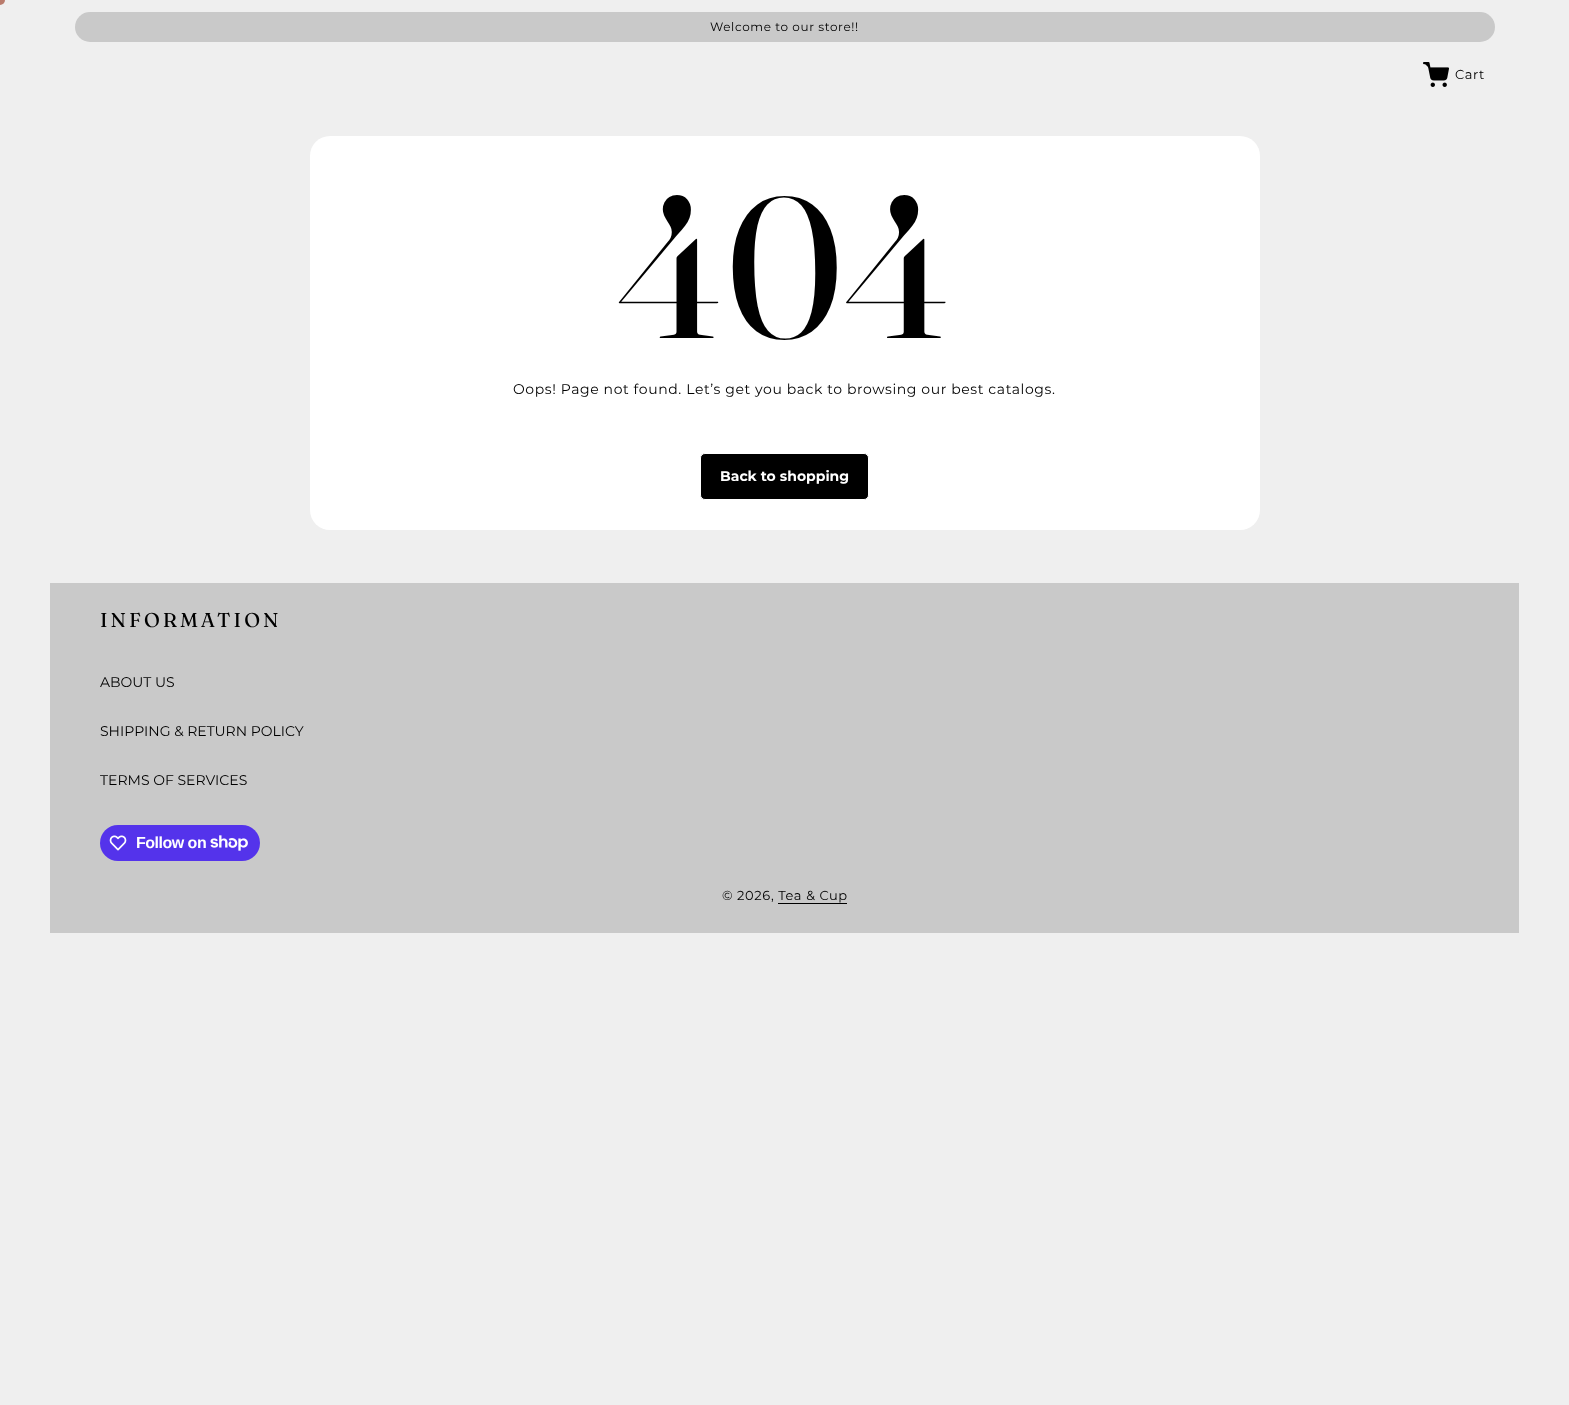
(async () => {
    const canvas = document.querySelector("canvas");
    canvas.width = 1569;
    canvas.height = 1405;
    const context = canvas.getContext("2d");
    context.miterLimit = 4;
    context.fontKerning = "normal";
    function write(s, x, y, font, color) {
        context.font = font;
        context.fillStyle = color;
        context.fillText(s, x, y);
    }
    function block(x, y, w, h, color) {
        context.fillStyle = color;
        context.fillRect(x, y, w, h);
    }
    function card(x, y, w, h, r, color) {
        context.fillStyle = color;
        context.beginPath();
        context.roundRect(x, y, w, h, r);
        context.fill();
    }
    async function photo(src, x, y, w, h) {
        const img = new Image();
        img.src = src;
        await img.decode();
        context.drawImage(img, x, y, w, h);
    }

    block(0, 0, 1569, 1405, "rgb(239, 239, 239)");
    context.fillStyle = "rgb(185, 123, 108)";
    context.beginPath();
    context.arc(0, 0, 5, 0, Math.PI * 2);
    context.fill();
    card(75, 12, 1420, 30, 15, "rgb(201, 201, 201)");
    context.letterSpacing = "0.6px";
    write("Welcome to our store!!", 710, 31, "12px Montserrat", "rgb(0, 0, 0)");
    await photo("media/1.png", 1423, 62, 26, 25);
    write("Cart", 1455, 79, "13px Montserrat", "rgb(0, 0, 0)");
    card(310, 136, 950, 394, 20, "rgb(255, 255, 255)");
    write("404", 617, 338, "200px Fraunces", "rgb(0, 0, 0)");
    write("Oops! Page not found. Let’s get you back to browsing our best catalogs.", 513, 394, "14px Montserrat", "rgb(0, 0, 0)");
    context.beginPath();
    context.roundRect(700.5, 453.5, 168, 46, 4.5);
    context.fill();
    context.strokeStyle = "rgb(255, 255, 255)";
    context.stroke();
    context.letterSpacing = "0px";
    write("Back to shopping", 720, 481, "bold 14px Montserrat", "rgb(255, 255, 255)");
    block(50, 583, 1469, 350, "rgb(201, 201, 201)");
    context.letterSpacing = "3px";
    write("INFORMATION", 100, 627, "20px 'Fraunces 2'", "rgb(0, 0, 0)");
    context.letterSpacing = "0px";
    write("ABOUT US", 100, 687, "14px Montserrat", "rgb(0, 0, 0)");
    write("SHIPPING & RETURN POLICY", 100, 736, "14px Montserrat", "rgb(0, 0, 0)");
    write("TERMS OF SERVICES", 100, 785, "14px Montserrat", "rgb(0, 0, 0)");
    card(100, 825, 160, 36, 18, "rgb(84, 51, 235)");
    await photo("media/2.png", 109, 835, 18, 16);
    context.letterSpacing = "-0.5px";
    write("Follow on", 136, 848, "bold 16px Liberation Sans", "rgb(255, 255, 255)");
    await photo("media/3.png", 210, 835, 38, 16);
    context.letterSpacing = "0.6px";
    write("© 2026, Tea & Cup", 722, 900, "13px Montserrat", "rgb(0, 0, 0)");
    block(778, 903, 69, 1, "rgb(0, 0, 0)");
})();
